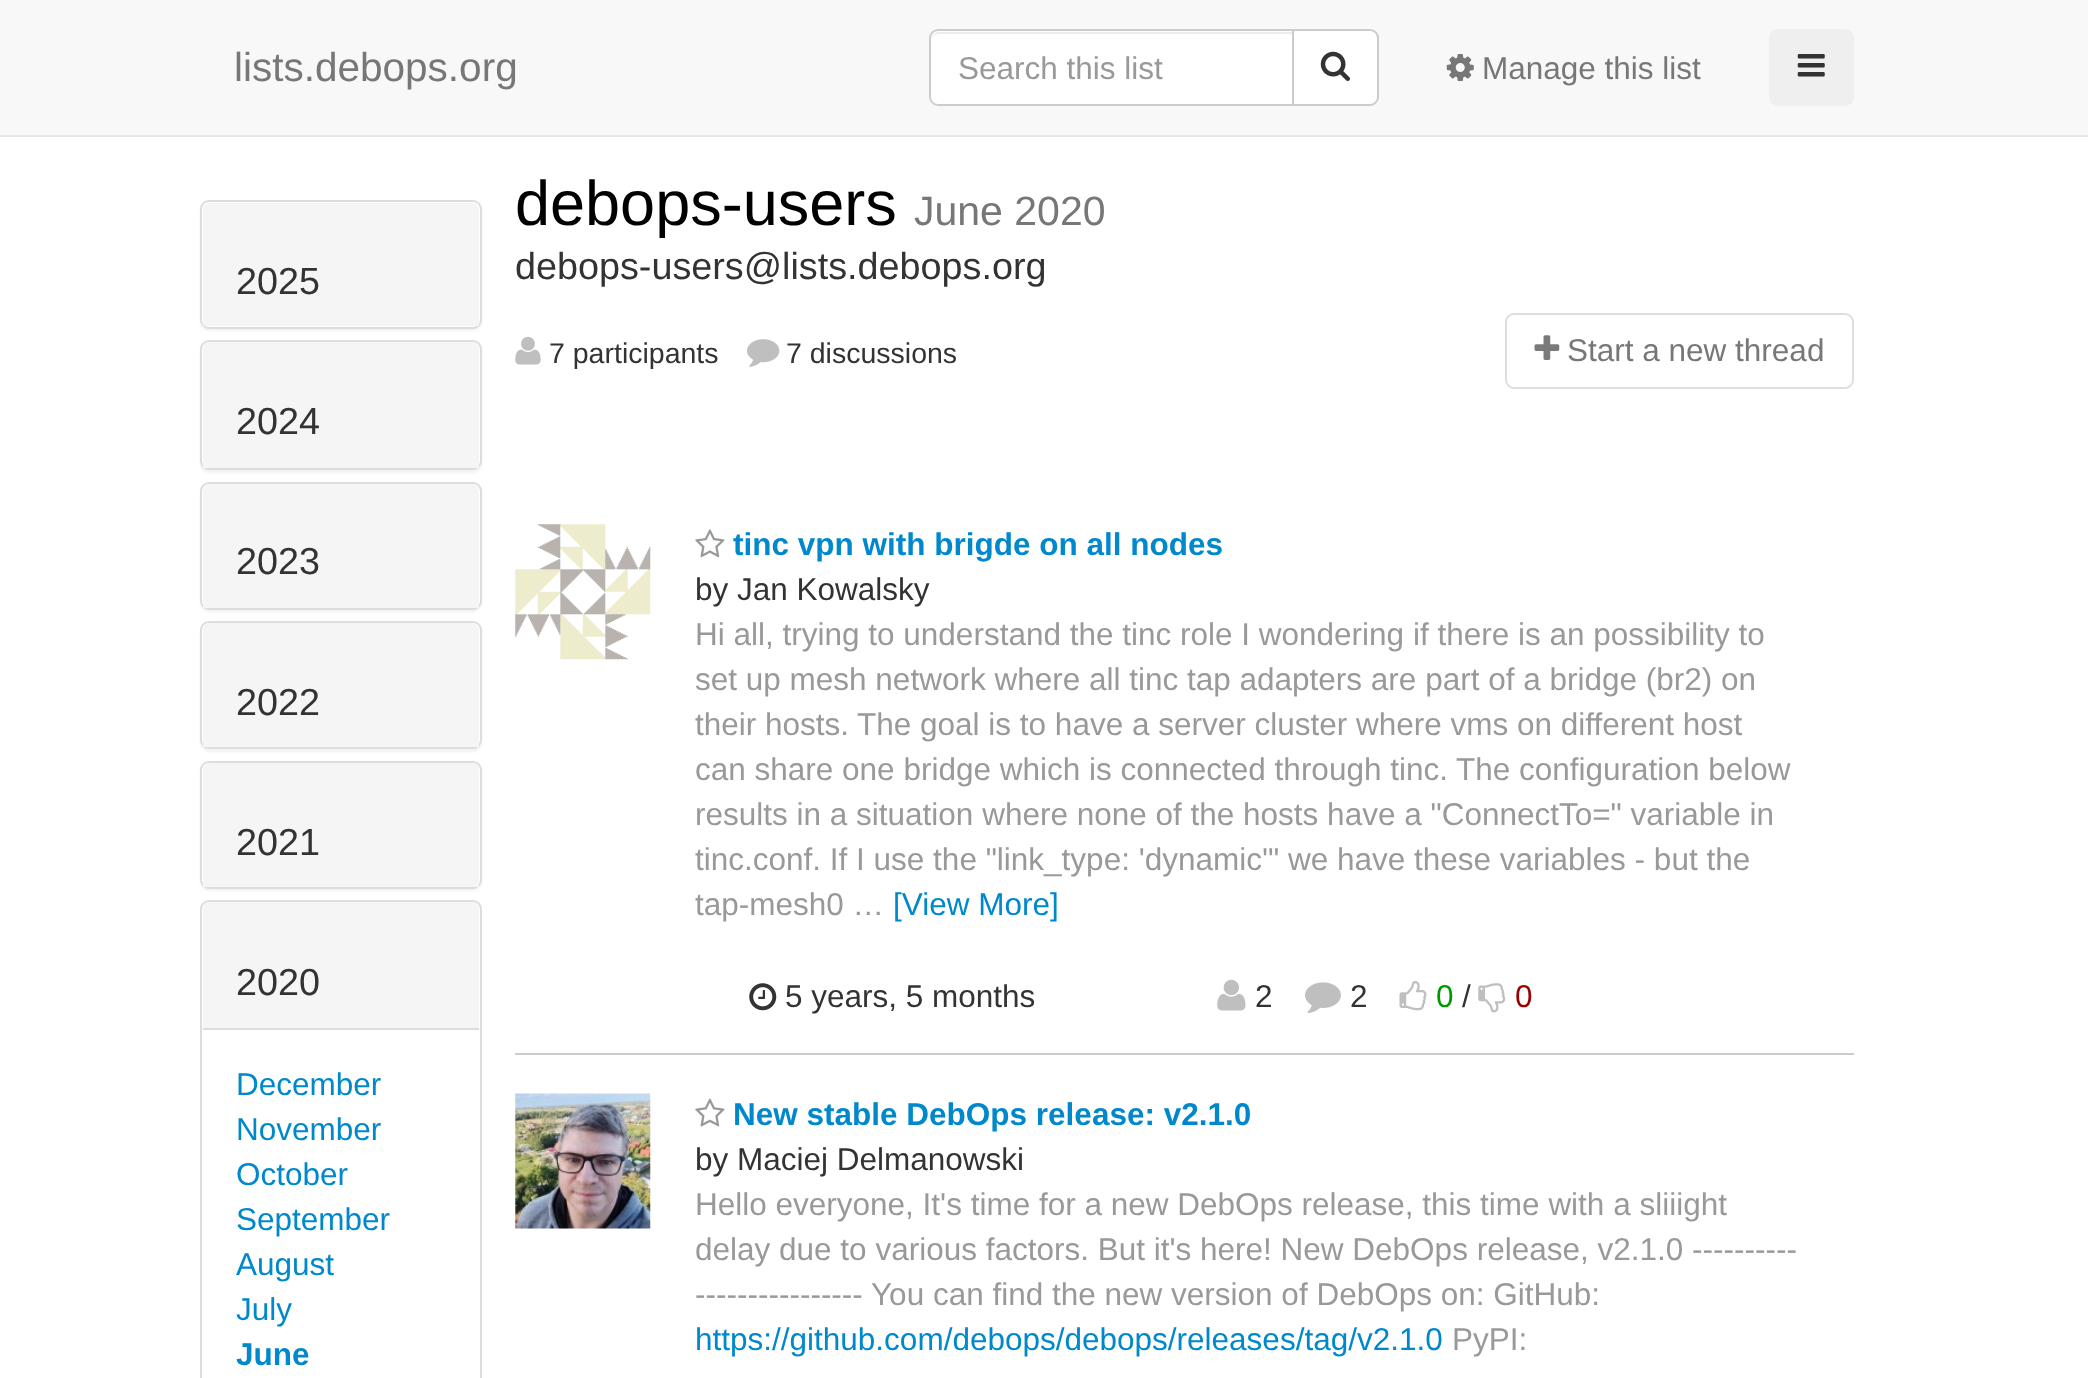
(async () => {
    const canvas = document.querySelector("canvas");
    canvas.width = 2088;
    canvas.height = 1378;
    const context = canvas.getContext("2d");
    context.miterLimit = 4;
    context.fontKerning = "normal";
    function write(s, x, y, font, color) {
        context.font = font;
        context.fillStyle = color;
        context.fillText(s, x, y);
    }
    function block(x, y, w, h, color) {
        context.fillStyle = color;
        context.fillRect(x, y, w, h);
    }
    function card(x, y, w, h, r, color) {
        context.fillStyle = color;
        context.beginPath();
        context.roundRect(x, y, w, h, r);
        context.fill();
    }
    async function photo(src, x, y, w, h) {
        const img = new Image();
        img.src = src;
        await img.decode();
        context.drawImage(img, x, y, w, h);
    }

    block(0, 0, 2088, 1378, "rgb(255, 255, 255)");
    block(0, 0, 2088, 135, "rgb(248, 248, 248)");
    block(0, 135, 2088, 2, "rgb(231, 231, 231)");
    write("lists.debops.org", 234, 81, "40.5px Liberation Sans", "rgb(119, 119, 119)");
    context.fillStyle = "rgb(255, 255, 255)";
    context.beginPath();
    context.roundRect(929, 29, 365, 77, [9, 0, 0, 9]);
    context.fill();
    context.fillStyle = "rgb(236, 236, 236)";
    context.beginPath();
    context.moveTo(938, 34);
    context.lineTo(1292, 34);
    context.lineTo(1292, 32);
    context.lineTo(939, 32);
    context.bezierCurveTo(935, 32, 932, 35, 932, 39);
    context.lineTo(932, 40);
    context.bezierCurveTo(932, 37, 935, 34, 938, 34);
    context.closePath();
    context.fill();
    context.beginPath();
    context.roundRect(930, 30, 363, 75, [8, 0, 0, 8]);
    context.strokeStyle = "rgb(204, 204, 204)";
    context.lineWidth = 2;
    context.stroke();
    write("Search this list", 958, 79, "31.5px Liberation Sans", "rgb(153, 153, 153)");
    context.fillStyle = "rgb(255, 255, 255)";
    context.beginPath();
    context.roundRect(1293, 30, 85, 75, [0, 8, 8, 0]);
    context.fill();
    context.stroke();
    await photo("media/1.png", 1320, 51, 30, 30);
    await photo("media/2.png", 1446, 54, 28, 27);
    write("Manage this list", 1482, 79, "31.5px Liberation Sans", "rgb(119, 119, 119)");
    card(1769, 29, 85, 77, 9, "rgb(239, 239, 239)");
    await photo("media/3.png", 1797, 54, 28, 23);
    context.fillStyle = "rgba(0, 0, 0, 0.05)";
    context.filter = "blur(1px)";
    context.beginPath();
    context.roundRect(200, 203, 282, 128, 9);
    context.fill();
    context.filter = "none";
    context.fillStyle = "rgb(255, 255, 255)";
    context.beginPath();
    context.roundRect(201, 201, 280, 127, 8);
    context.fill();
    context.strokeStyle = "rgb(221, 221, 221)";
    context.stroke();
    context.fillStyle = "rgb(245, 245, 245)";
    context.beginPath();
    context.roundRect(203, 203, 276, 123, [7, 7, 0, 0]);
    context.fill();
    write("2025", 236, 294, "37.75px Liberation Sans", "rgb(51, 51, 51)");
    context.fillStyle = "rgba(0, 0, 0, 0.05)";
    context.filter = "blur(1px)";
    context.beginPath();
    context.roundRect(200, 342, 282, 131, 9);
    context.fill();
    context.filter = "none";
    context.fillStyle = "rgb(255, 255, 255)";
    context.beginPath();
    context.roundRect(201, 341, 280, 128, 8);
    context.fill();
    context.stroke();
    context.fillStyle = "rgb(245, 245, 245)";
    context.beginPath();
    context.roundRect(203, 342, 276, 126, [7, 7, 0, 0]);
    context.fill();
    write("2024", 236, 434, "37.75px Liberation Sans", "rgb(51, 51, 51)");
    context.fillStyle = "rgba(0, 0, 0, 0.05)";
    context.filter = "blur(1px)";
    context.beginPath();
    context.roundRect(200, 484, 282, 128, 9);
    context.fill();
    context.filter = "none";
    context.fillStyle = "rgb(255, 255, 255)";
    context.beginPath();
    context.roundRect(201, 483, 280, 126, 8);
    context.fill();
    context.stroke();
    context.fillStyle = "rgb(245, 245, 245)";
    context.beginPath();
    context.roundRect(203, 484, 276, 124, [7, 7, 0, 0]);
    context.fill();
    write("2023", 236, 574, "37.75px Liberation Sans", "rgb(51, 51, 51)");
    context.fillStyle = "rgba(0, 0, 0, 0.05)";
    context.filter = "blur(1px)";
    context.beginPath();
    context.roundRect(200, 623, 282, 129, 9);
    context.fill();
    context.filter = "none";
    context.fillStyle = "rgb(255, 255, 255)";
    context.beginPath();
    context.roundRect(201, 622, 280, 126, 8);
    context.fill();
    context.stroke();
    context.fillStyle = "rgb(245, 245, 245)";
    context.beginPath();
    context.roundRect(203, 623, 276, 124, [7, 7, 0, 0]);
    context.fill();
    write("2022", 236, 715, "37.75px Liberation Sans", "rgb(51, 51, 51)");
    context.fillStyle = "rgba(0, 0, 0, 0.05)";
    context.filter = "blur(1px)";
    context.beginPath();
    context.roundRect(200, 763, 282, 128, 9);
    context.fill();
    context.filter = "none";
    context.fillStyle = "rgb(255, 255, 255)";
    context.beginPath();
    context.roundRect(201, 762, 280, 126, 8);
    context.fill();
    context.stroke();
    context.fillStyle = "rgb(245, 245, 245)";
    context.beginPath();
    context.roundRect(203, 763, 276, 124, [7, 7, 0, 0]);
    context.fill();
    write("2021", 236, 855, "37.75px Liberation Sans", "rgb(51, 51, 51)");
    context.beginPath();
    context.roundRect(201, 901, 280, 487, 8);
    context.stroke();
    context.fillStyle = "rgb(245, 245, 245)";
    context.beginPath();
    context.roundRect(203, 902, 276, 126, [7, 7, 0, 0]);
    context.fill();
    write("2020", 236, 995, "37.75px Liberation Sans", "rgb(51, 51, 51)");
    block(203, 1028, 276, 2, "rgb(221, 221, 221)");
    write("December", 236, 1095, "31.5px Liberation Sans", "rgb(0, 136, 204)");
    write("November", 236, 1140, "31.5px Liberation Sans", "rgb(0, 136, 204)");
    write("October", 236, 1185, "31.5px Liberation Sans", "rgb(0, 136, 204)");
    write("September", 236, 1230, "31.5px Liberation Sans", "rgb(0, 136, 204)");
    write("August", 236, 1275, "31.5px Liberation Sans", "rgb(0, 136, 204)");
    write("July", 236, 1320, "31.5px Liberation Sans", "rgb(0, 136, 204)");
    write("June", 236, 1365, "bold 31.5px Liberation Sans", "rgb(0, 136, 204)");
    write("debops-users", 515, 225, "63px Liberation Sans", "rgb(0, 0, 0)");
    write("June 2020", 914, 225, "41px Liberation Sans", "rgb(119, 119, 119)");
    write("debops-users@lists.debops.org", 515, 279, "37.75px Liberation Sans", "rgb(51, 51, 51)");
    await photo("media/4.png", 515, 336, 26, 29);
    write("7 participants", 549, 363, "28.5px Liberation Sans", "rgb(51, 51, 51)");
    await photo("media/5.png", 747, 339, 33, 28);
    write("7 discussions", 786, 363, "28.5px Liberation Sans", "rgb(51, 51, 51)");
    context.beginPath();
    context.roundRect(1506, 314, 347, 74, 8);
    context.strokeStyle = "rgb(222, 222, 222)";
    context.stroke();
    await photo("media/6.png", 1534, 335, 26, 25);
    write("Start a new thread", 1567, 361, "31.5px Liberation Sans", "rgb(119, 119, 119)");
    block(515, 1053, 1339, 2, "rgb(204, 204, 204)");
    await photo("media/7.png", 515, 524, 136, 136);
    await photo("media/8.png", 695, 529, 30, 29);
    write("tinc vpn with brigde on all nodes", 733, 555, "bold 31.5px Liberation Sans", "rgb(0, 136, 204)");
    write("by Jan Kowalsky", 695, 600, "31.5px Liberation Sans", "rgb(51, 51, 51)");
    write("Hi all, trying to understand the tinc role I wondering if there is an possibility to", 695, 645, "31.5px Liberation Sans", "rgb(153, 153, 153)");
    write("set up mesh network where all tinc tap adapters are part of a bridge (br2) on", 695, 690, "31.5px Liberation Sans", "rgb(153, 153, 153)");
    write("their hosts.", 695, 735, "31.5px Liberation Sans", "rgb(153, 153, 153)");
    write("The goal is to have a server cluster where vms on different host", 857, 735, "31.5px Liberation Sans", "rgb(153, 153, 153)");
    write("can share one bridge which is connected through tinc.", 695, 780, "31.5px Liberation Sans", "rgb(153, 153, 153)");
    write("The configuration below", 1456, 780, "31.5px Liberation Sans", "rgb(153, 153, 153)");
    write("results in a situation where none of the hosts have a \"ConnectTo=\" variable in", 695, 825, "31.5px Liberation Sans", "rgb(153, 153, 153)");
    write("tinc.conf. If I use the \"link_type: 'dynamic'\" we have these variables - but the", 695, 870, "31.5px Liberation Sans", "rgb(153, 153, 153)");
    write("tap-mesh0 …", 695, 915, "31.5px Liberation Sans", "rgb(153, 153, 153)");
    write("[View More]", 893, 915, "31.5px Liberation Sans", "rgb(0, 136, 204)");
    await photo("media/9.png", 749, 983, 28, 28);
    write("5 years, 5 months", 785, 1007, "31.5px Liberation Sans", "rgb(51, 51, 51)");
    await photo("media/10.png", 1217, 979, 29, 32);
    write("2", 1255, 1007, "31.5px Liberation Sans", "rgb(51, 51, 51)");
    await photo("media/11.png", 1305, 982, 36, 32);
    write("2", 1350, 1007, "31.5px Liberation Sans", "rgb(51, 51, 51)");
    await photo("media/12.png", 1399, 981, 28, 30);
    write("0", 1436, 1007, "31.5px Liberation Sans", "rgb(0, 153, 0)");
    write("/", 1462, 1007, "31.5px Liberation Sans", "rgb(51, 51, 51)");
    await photo("media/13.png", 1478, 983, 28, 30);
    write("0", 1515, 1007, "31.5px Liberation Sans", "rgb(153, 0, 0)");
    await photo("media/14.png", 515, 1093, 136, 136);
    await photo("media/15.png", 695, 1098, 30, 29);
    write("New stable DebOps release: v2.1.0", 733, 1125, "bold 31.5px Liberation Sans", "rgb(0, 136, 204)");
    write("by Maciej Delmanowski", 695, 1170, "31.5px Liberation Sans", "rgb(51, 51, 51)");
    write("Hello everyone, It's time for a new DebOps release, this time with a sliiight", 695, 1215, "31.5px Liberation Sans", "rgb(153, 153, 153)");
    write("delay due to various factors. But it's here! New DebOps release, v2.1.0 ----------", 695, 1260, "31.5px Liberation Sans", "rgb(153, 153, 153)");
    write("----------------", 695, 1305, "31.5px Liberation Sans", "rgb(153, 153, 153)");
    write("You can find the new version of DebOps on: GitHub:", 871, 1305, "31.5px Liberation Sans", "rgb(153, 153, 153)");
    write("https://github.com/debops/debops/releases/tag/v2.1.0", 695, 1350, "31.5px Liberation Sans", "rgb(0, 136, 204)");
    write("PyPI:", 1452, 1350, "31.5px Liberation Sans", "rgb(153, 153, 153)");
})();
